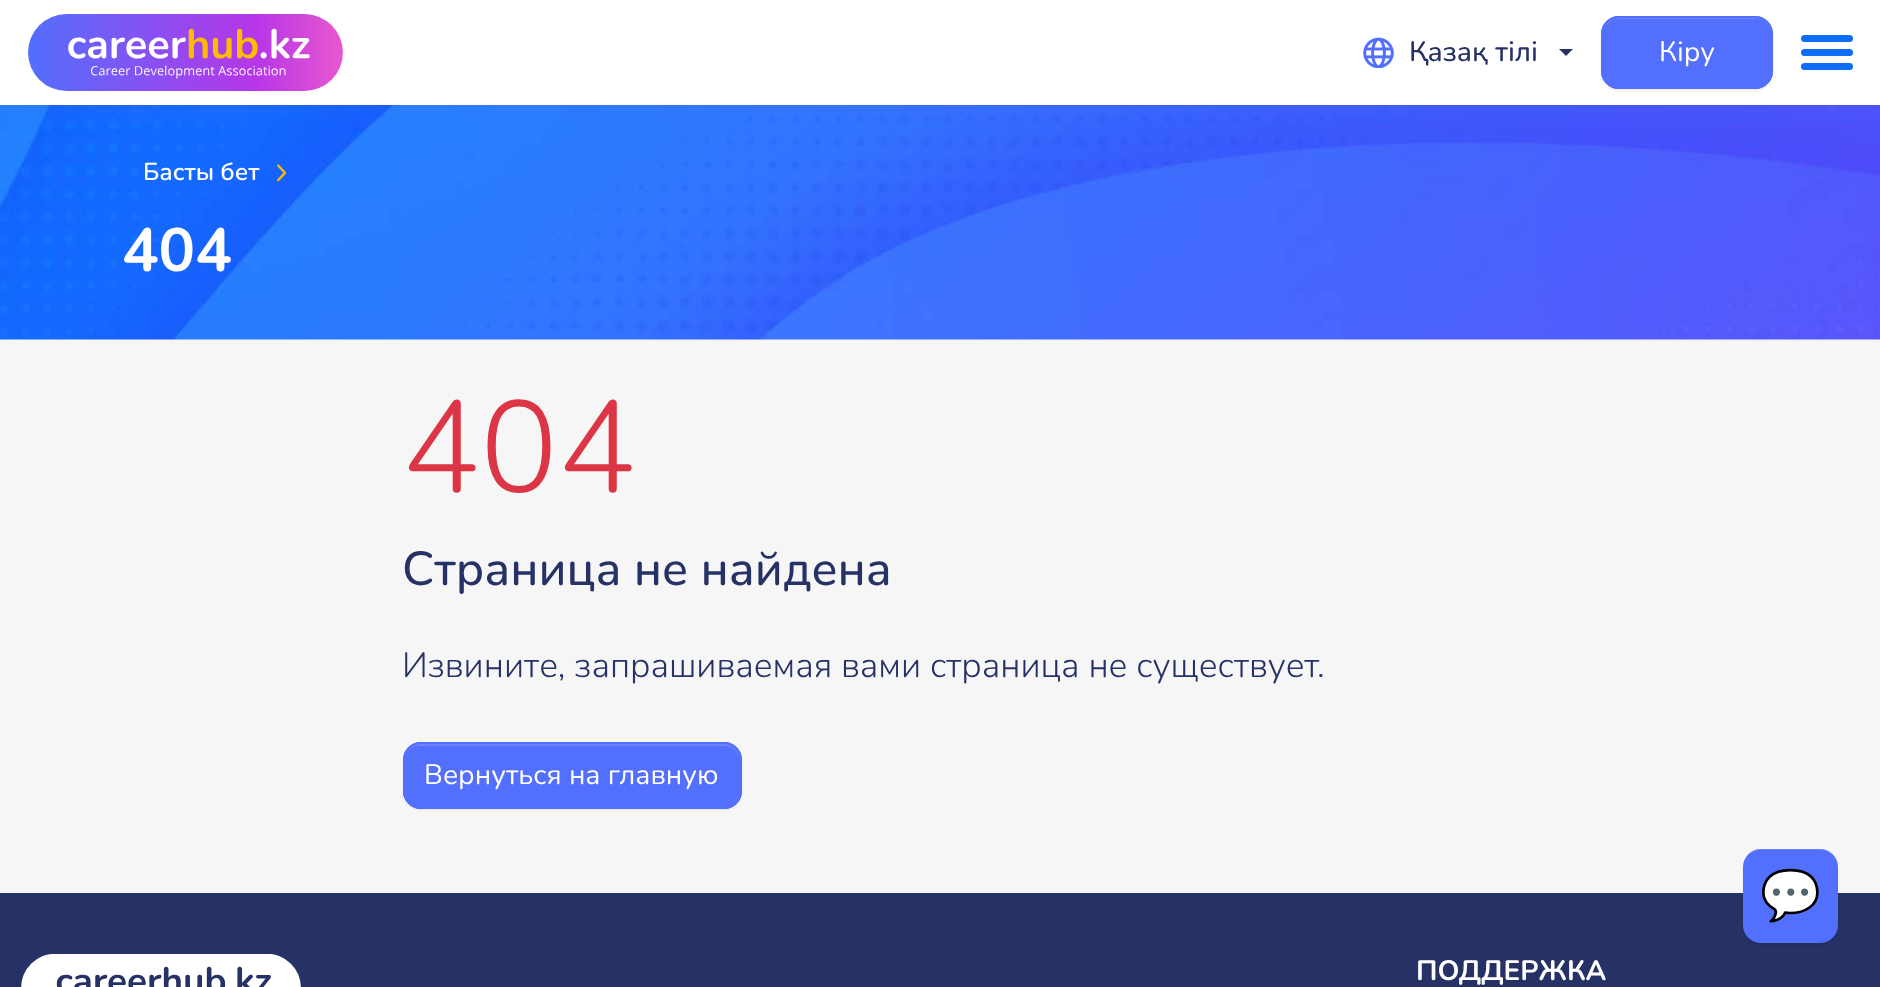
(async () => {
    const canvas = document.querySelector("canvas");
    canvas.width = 1880;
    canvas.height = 987;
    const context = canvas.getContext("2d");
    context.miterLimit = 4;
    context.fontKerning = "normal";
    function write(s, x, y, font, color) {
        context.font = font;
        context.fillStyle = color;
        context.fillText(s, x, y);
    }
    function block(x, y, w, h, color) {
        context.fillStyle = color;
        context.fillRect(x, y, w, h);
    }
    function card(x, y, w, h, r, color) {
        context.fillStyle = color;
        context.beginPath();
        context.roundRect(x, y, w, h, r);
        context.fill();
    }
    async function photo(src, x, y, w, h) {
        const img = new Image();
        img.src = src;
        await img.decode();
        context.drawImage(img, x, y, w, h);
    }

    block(0, 0, 1880, 987, "rgb(246, 246, 247)");
    await photo("media/3.png", 0, 105, 1880, 235);
    context.fillStyle = "rgba(82, 111, 253, 0.2)";
    context.filter = "blur(10.5px)";
    context.beginPath();
    context.rect(0, 4, 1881, 105);
    context.fill();
    context.filter = "none";
    block(0, 0, 1880, 105, "rgb(255, 255, 255)");
    await photo("media/1.png", 28, 14, 315, 77);
    await photo("media/2.png", 1363, 37, 31, 31);
    write("Қазақ тілі", 1409, 61, "500 28px Nunito", "rgb(38, 49, 101)");
    context.beginPath();
    context.moveTo(1559, 49);
    context.lineTo(1573, 49);
    context.lineTo(1566, 56);
    context.closePath();
    context.fill();
    context.fillStyle = "rgba(0, 0, 0, 0.07)";
    context.filter = "blur(1px)";
    context.beginPath();
    context.roundRect(1601, 18, 172, 73, 18);
    context.fill();
    context.filter = "none";
    card(1601, 16, 172, 73, 18, "rgb(82, 111, 253)");
    context.fillStyle = "rgb(108, 133, 253)";
    context.beginPath();
    context.moveTo(1619, 19);
    context.lineTo(1755, 19);
    context.bezierCurveTo(1764, 19, 1771, 26, 1771, 35);
    context.bezierCurveTo(1771, 13, 1747, 18, 1732, 18);
    context.lineTo(1642, 18);
    context.bezierCurveTo(1627, 18, 1603, 13, 1603, 35);
    context.bezierCurveTo(1603, 26, 1610, 19, 1619, 19);
    context.closePath();
    context.fill();
    context.beginPath();
    context.roundRect(1602, 17, 170, 71, 17);
    context.strokeStyle = "rgb(82, 111, 253)";
    context.lineWidth = 2;
    context.stroke();
    write("Кіру", 1659, 61, "28px Nunito", "rgb(255, 255, 255)");
    card(1801, 35, 52, 7, 3.5, "rgb(13, 110, 253)");
    card(1801, 49, 52, 7, 3.5, "rgb(13, 110, 253)");
    card(1801, 63, 52, 7, 3.5, "rgb(13, 110, 253)");
    write("Басты бет", 143, 180, "600 24.5px Nunito", "rgb(255, 255, 255)");
    await photo("media/4.png", 277, 164, 10, 18);
    write("404", 122, 271, "bold 61px Nunito", "rgb(255, 255, 255)");
    write("404", 402, 492, "300 130px Nunito", "rgb(220, 53, 69)");
    write("Страница не найдена", 402, 585, "500 47.75px Nunito", "rgb(38, 49, 101)");
    write("Извините, запрашиваемая вами страница не существует.", 402, 677, "300 35px Nunito", "rgb(38, 49, 101)");
    context.fillStyle = "rgba(0, 0, 0, 0.07)";
    context.filter = "blur(1px)";
    context.beginPath();
    context.roundRect(403, 744, 339, 66, 18);
    context.fill();
    context.filter = "none";
    card(403, 742, 339, 67, 18, "rgb(82, 111, 253)");
    context.fillStyle = "rgb(108, 133, 253)";
    context.beginPath();
    context.moveTo(420, 746);
    context.lineTo(724, 746);
    context.bezierCurveTo(733, 746, 740, 753, 740, 761);
    context.lineTo(740, 760);
    context.bezierCurveTo(740, 751, 733, 744, 724, 744);
    context.lineTo(420, 744);
    context.bezierCurveTo(411, 744, 404, 751, 404, 760);
    context.lineTo(404, 761);
    context.bezierCurveTo(404, 753, 411, 746, 420, 746);
    context.closePath();
    context.fill();
    context.beginPath();
    context.roundRect(404, 743, 337, 65, 17);
    context.stroke();
    write("Вернуться на главную", 424, 784, "28px Nunito", "rgb(255, 255, 255)");
    block(0, 893, 1880, 94, "rgb(38, 49, 101)");
    await photo("media/5.png", 21, 954, 280, 33);
    write("ПОДДЕРЖКА", 1416, 980, "bold 28px Nunito", "rgb(255, 255, 255)");
    context.fillStyle = "rgba(0, 0, 0, 0.07)";
    context.filter = "blur(1px)";
    context.beginPath();
    context.roundRect(1743, 851, 95, 94, 18);
    context.fill();
    context.filter = "none";
    card(1743, 849, 95, 94, 18, "rgb(82, 111, 253)");
    context.fillStyle = "rgba(255, 255, 255, 0.15)";
    context.beginPath();
    context.moveTo(1760, 850);
    context.lineTo(1820, 850);
    context.bezierCurveTo(1830, 850, 1838, 858, 1838, 868);
    context.lineTo(1838, 867);
    context.bezierCurveTo(1838, 857, 1830, 849, 1820, 849);
    context.lineTo(1761, 849);
    context.bezierCurveTo(1751, 849, 1743, 857, 1743, 867);
    context.lineTo(1743, 868);
    context.bezierCurveTo(1743, 858, 1751, 850, 1760, 850);
    context.closePath();
    context.fill();
    write("💬", 1760, 912, "49px Noto Color Emoji", "rgb(0, 0, 0)");
})();
